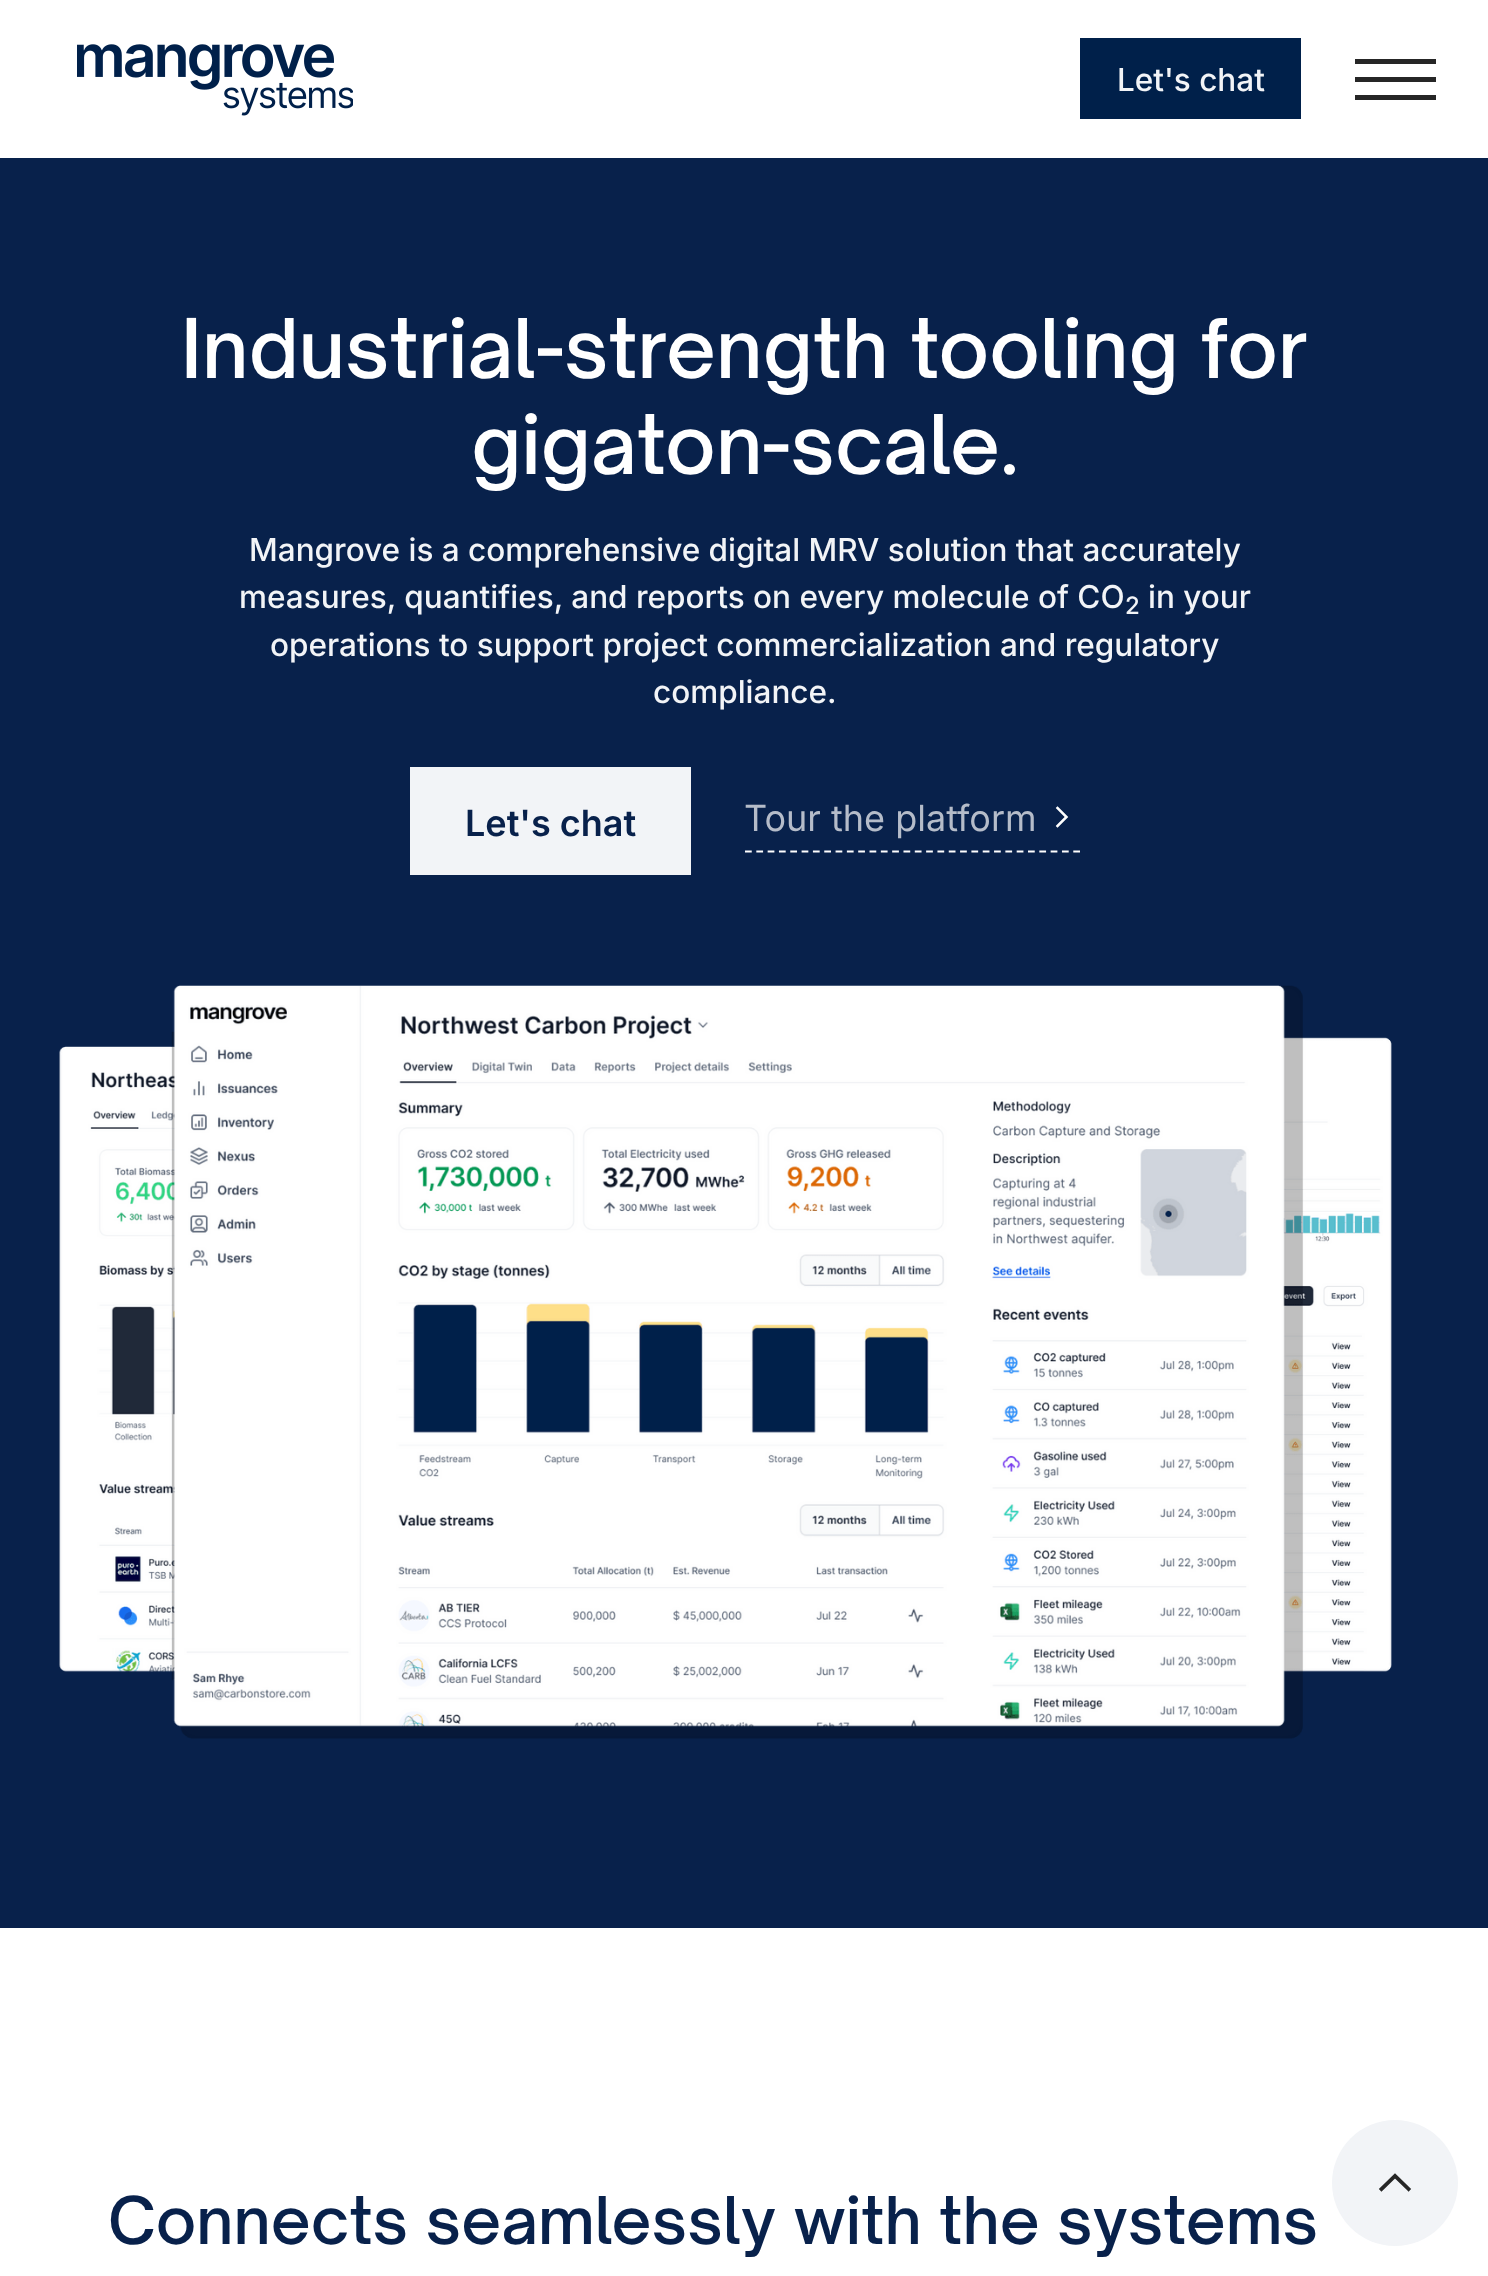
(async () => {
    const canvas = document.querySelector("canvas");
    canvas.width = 1488;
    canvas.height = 2276;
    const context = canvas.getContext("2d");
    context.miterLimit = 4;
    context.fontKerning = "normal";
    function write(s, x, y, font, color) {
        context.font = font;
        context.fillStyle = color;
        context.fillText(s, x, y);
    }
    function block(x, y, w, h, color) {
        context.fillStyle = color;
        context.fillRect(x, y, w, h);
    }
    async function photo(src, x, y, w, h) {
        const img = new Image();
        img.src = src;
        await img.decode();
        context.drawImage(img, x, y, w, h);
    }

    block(0, 0, 1488, 2276, "rgb(255, 255, 255)");
    await photo("media/1.png", 77, 44, 276, 72);
    block(1080, 38, 221, 81, "rgb(0, 32, 74)");
    write("Let's chat", 1117, 91, "500 31.5px Inter", "rgb(242, 244, 247)");
    block(1355, 59, 81, 5, "rgb(38, 38, 38)");
    block(1355, 77, 81, 5, "rgb(38, 38, 38)");
    block(1355, 95, 81, 5, "rgb(38, 38, 38)");
    block(0, 158, 1488, 1770, "rgb(8, 33, 75)");
    write("Industrial-strength tooling for", 181, 378, "500 78.75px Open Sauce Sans", "rgb(255, 255, 255)");
    write("gigaton-scale.", 471, 474, "500 78.75px Open Sauce Sans", "rgb(255, 255, 255)");
    write("Mangrove is a comprehensive digital MRV solution that accurately", 249, 561, "500 31.5px Inter", "rgb(242, 244, 247)");
    write("measures, quantifies, and reports on every molecule of CO", 239, 608, "500 31.5px Inter", "rgb(242, 244, 247)");
    write("2", 1125, 614, "500 24px Inter", "rgb(242, 244, 247)");
    write("in your", 1148, 608, "500 31.5px Inter", "rgb(242, 244, 247)");
    write("operations to support project commercialization and regulatory", 270, 656, "500 31.5px Inter", "rgb(242, 244, 247)");
    write("compliance.", 653, 703, "500 31.5px Inter", "rgb(242, 244, 247)");
    block(410, 767, 281, 108, "rgb(242, 244, 247)");
    write("Let's chat", 465, 836, "600 36px Inter", "rgb(8, 33, 75)");
    context.beginPath();
    context.moveTo(745, 851.5);
    context.lineTo(1080, 851.5);
    context.strokeStyle = "rgb(255, 255, 255)";
    context.lineWidth = 2.2;
    context.setLineDash([6.75, 4.57]);
    context.stroke();
    write("Tour the platform", 744, 831, "36px Inter", "rgb(181, 188, 201)");
    context.beginPath();
    context.moveTo(1057.5, 826);
    context.lineTo(1066.5, 817);
    context.lineTo(1057.5, 808);
    context.lineWidth = 2.5;
    context.lineCap = "square";
    context.setLineDash([]);
    context.stroke();
    await photo("media/2.png", 59, 985, 1333, 754);
    write("Connects seamlessly with the systems", 108, 2244, "500 63px Open Sauce Sans", "rgb(8, 33, 75)");
    context.fillStyle = "rgb(242, 244, 247)";
    context.beginPath();
    context.arc(1395, 2183, 63, 0, Math.PI * 2);
    context.fill();
    context.beginPath();
    context.moveTo(1408.5, 2189);
    context.lineTo(1395, 2176);
    context.lineTo(1381.5, 2189);
    context.strokeStyle = "rgb(38, 38, 38)";
    context.lineWidth = 3.8;
    context.stroke();
})();
